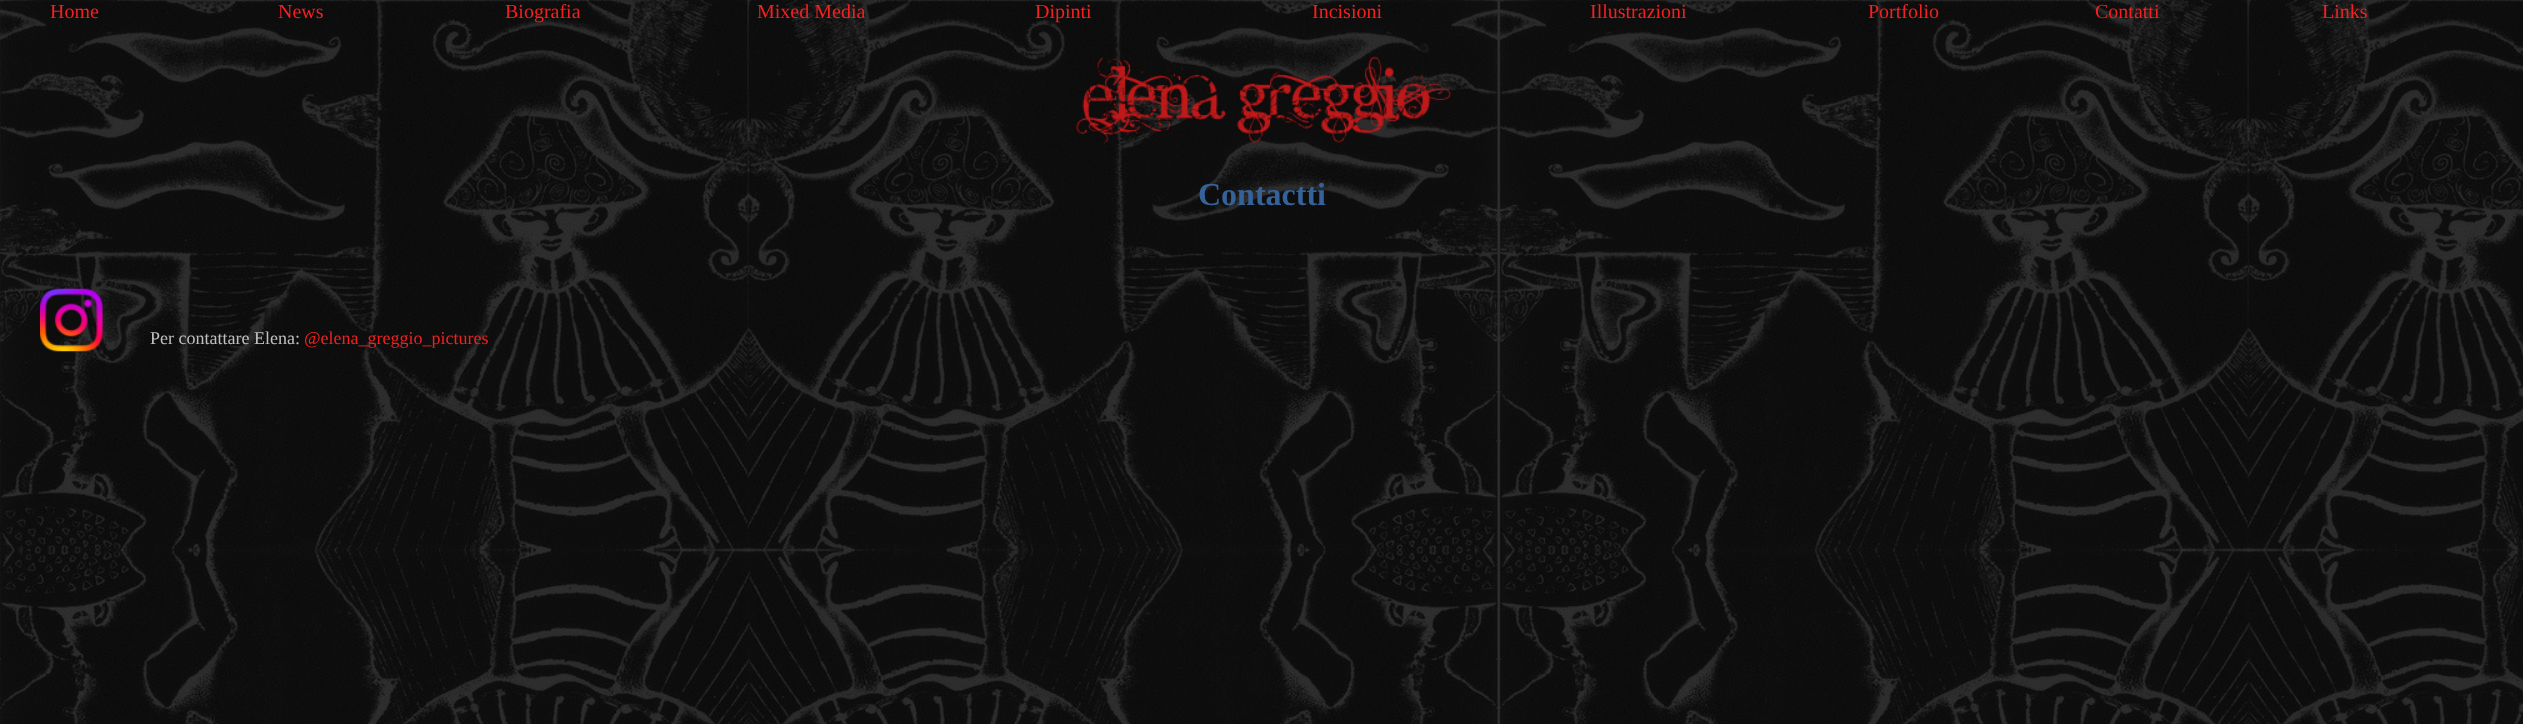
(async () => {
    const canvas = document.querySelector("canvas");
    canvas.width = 2523;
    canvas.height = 724;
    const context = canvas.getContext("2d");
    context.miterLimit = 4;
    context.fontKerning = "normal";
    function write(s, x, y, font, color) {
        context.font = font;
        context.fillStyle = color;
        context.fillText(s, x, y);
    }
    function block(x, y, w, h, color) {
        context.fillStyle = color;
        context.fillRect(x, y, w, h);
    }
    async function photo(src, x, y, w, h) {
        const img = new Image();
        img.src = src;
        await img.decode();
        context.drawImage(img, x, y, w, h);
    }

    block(0, 0, 2523, 724, "rgb(255, 255, 255)");
    await photo("media/1.png", 0, 0, 2523, 724);
    write("Home", 50, 18, "20px Liberation Serif", "rgb(244, 32, 32)");
    write("News", 278, 18, "20px Liberation Serif", "rgb(244, 32, 32)");
    write("Biografia", 505, 18, "20px Liberation Serif", "rgb(244, 32, 32)");
    write("Mixed Media", 757, 18, "20px Liberation Serif", "rgb(244, 32, 32)");
    write("Dipinti", 1035, 18, "20px Liberation Serif", "rgb(244, 32, 32)");
    write("Incisioni", 1312, 18, "20px Liberation Serif", "rgb(244, 32, 32)");
    write("Illustrazioni", 1590, 18, "20px Liberation Serif", "rgb(244, 32, 32)");
    write("Portfolio", 1868, 18, "20px Liberation Serif", "rgb(244, 32, 32)");
    write("Contatti", 2095, 18, "20px Liberation Serif", "rgb(244, 32, 32)");
    write("Links", 2322, 18, "20px Liberation Serif", "rgb(244, 32, 32)");
    await photo("media/2.png", 1076, 56, 376, 88);
    write("Contactti", 1198, 205, "bold 32px Liberation Serif", "rgb(53, 98, 155)");
    await photo("media/3.png", 40, 288, 63, 64);
    write("Per contattare Elena:", 150, 344, "18px Liberation Serif", "rgb(192, 192, 192)");
    write("@elena_greggio_pictures", 304, 344, "18px Liberation Serif", "rgb(244, 32, 32)");
})();
